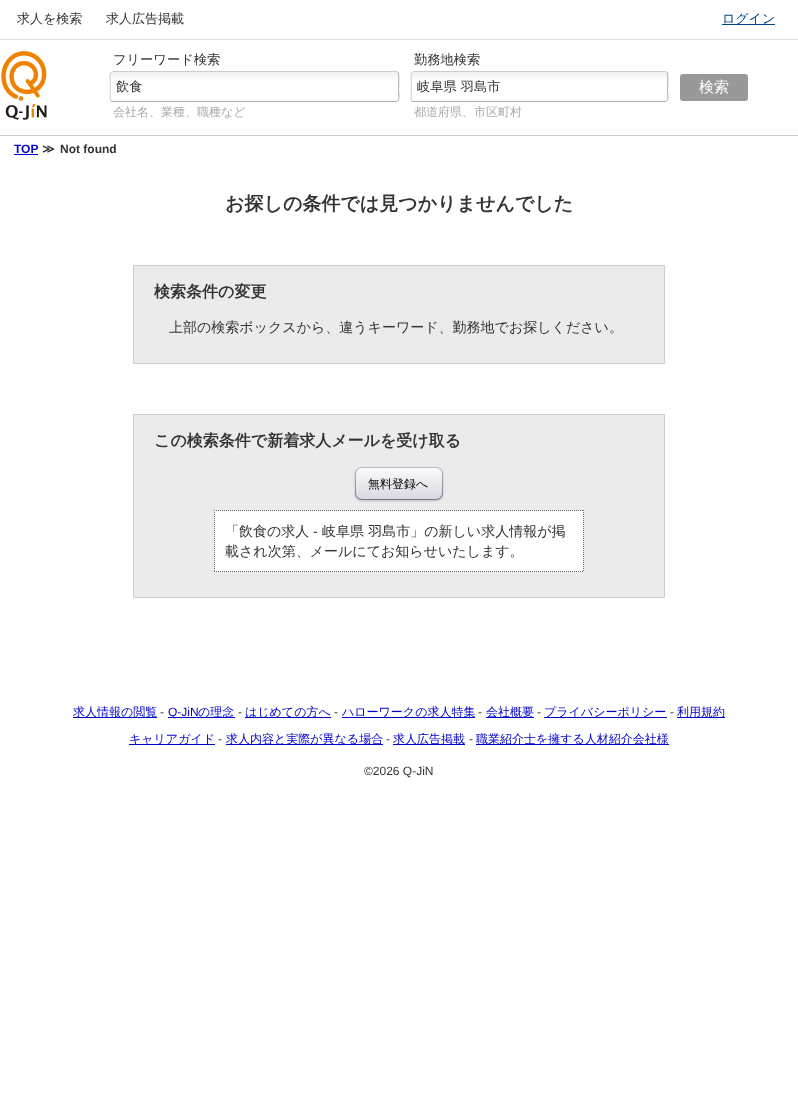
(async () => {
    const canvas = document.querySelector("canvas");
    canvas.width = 798;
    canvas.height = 1119;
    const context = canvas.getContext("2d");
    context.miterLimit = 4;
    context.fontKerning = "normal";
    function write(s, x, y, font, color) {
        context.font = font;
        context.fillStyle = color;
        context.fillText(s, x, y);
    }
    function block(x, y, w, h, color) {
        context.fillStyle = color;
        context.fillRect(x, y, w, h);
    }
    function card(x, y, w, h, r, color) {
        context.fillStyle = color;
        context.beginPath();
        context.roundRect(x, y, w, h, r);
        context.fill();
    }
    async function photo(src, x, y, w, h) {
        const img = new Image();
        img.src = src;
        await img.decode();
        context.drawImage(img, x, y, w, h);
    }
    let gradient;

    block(0, 0, 798, 1119, "rgb(255, 255, 255)");
    block(0, 39, 798, 1, "rgb(225, 225, 225)");
    write("求人を検索", 17, 23, "500 13px WenQuanYi Zen Hei", "rgb(51, 51, 51)");
    write("求人広告掲載", 106, 23, "500 13px WenQuanYi Zen Hei", "rgb(51, 51, 51)");
    block(722, 24, 53, 1, "rgb(0, 70, 140)");
    write("ログイン", 722, 23, "500 13px WenQuanYi Zen Hei", "rgb(0, 70, 140)");
    await photo("media/1.png", 1, 51, 46, 69);
    write("フリーワード検索", 113, 64, "500 13.25px WenQuanYi Zen Hei", "rgb(51, 51, 51)");
    write("勤務地検索", 414, 64, "500 13.25px WenQuanYi Zen Hei", "rgb(51, 51, 51)");
    block(110, 101, 3, 1, "rgb(232, 232, 232)");
    context.save();
    context.beginPath();
    context.roundRect(110, 71, 289, 31, 3);
    context.clip();
    gradient = context.createLinearGradient(255, 72, 255, 101);
    gradient.addColorStop(0, "rgb(239, 240, 242)");
    gradient.addColorStop(0.3, "rgb(255, 255, 255)");
    context.fillStyle = gradient;
    context.fillRect(110, 72, 289, 29);
    context.restore();
    context.beginPath();
    context.moveTo(398, 72);
    context.bezierCurveTo(399.5, 74, 398.5, 87.5, 398.5, 90.5);
    context.bezierCurveTo(398.5, 92.5, 400.5, 101.5, 396, 101.5);
    context.lineTo(113, 101.5);
    context.lineTo(111, 101);
    context.strokeStyle = "rgb(170, 170, 170)";
    context.stroke();
    context.beginPath();
    context.moveTo(111, 101);
    context.bezierCurveTo(109.5, 99, 110.5, 85.5, 110.5, 82.5);
    context.bezierCurveTo(110.5, 80.5, 108.5, 71.5, 113, 71.5);
    context.lineTo(396, 71.5);
    context.lineTo(398, 72);
    context.strokeStyle = "rgb(204, 204, 204)";
    context.stroke();
    write("飲食", 116, 91, "500 13.25px WenQuanYi Zen Hei", "rgb(51, 51, 51)");
    block(411, 101, 3, 1, "rgb(232, 232, 232)");
    context.save();
    context.beginPath();
    context.roundRect(411, 71, 257, 31, 3);
    context.clip();
    gradient = context.createLinearGradient(540, 72, 540, 101);
    gradient.addColorStop(0, "rgb(239, 240, 242)");
    gradient.addColorStop(0.3, "rgb(255, 255, 255)");
    context.fillStyle = gradient;
    context.fillRect(411, 72, 257, 29);
    context.restore();
    context.beginPath();
    context.moveTo(667, 72);
    context.bezierCurveTo(668.5, 74, 667.5, 87.5, 667.5, 90.5);
    context.bezierCurveTo(667.5, 92.5, 669.5, 101.5, 665, 101.5);
    context.lineTo(414, 101.5);
    context.lineTo(412, 101);
    context.strokeStyle = "rgb(170, 170, 170)";
    context.stroke();
    context.beginPath();
    context.moveTo(412, 101);
    context.bezierCurveTo(410.5, 99, 411.5, 85.5, 411.5, 82.5);
    context.bezierCurveTo(411.5, 80.5, 409.5, 71.5, 414, 71.5);
    context.lineTo(665, 71.5);
    context.lineTo(667, 72);
    context.strokeStyle = "rgb(204, 204, 204)";
    context.stroke();
    write("岐阜県 羽島市", 417, 91, "500 13.25px WenQuanYi Zen Hei", "rgb(51, 51, 51)");
    card(680, 74, 68, 27, 3, "rgb(153, 153, 153)");
    write("検索", 699, 92, "500 15px WenQuanYi Zen Hei", "rgb(255, 255, 255)");
    write("会社名、業種、職種など", 113, 116, "500 12px WenQuanYi Zen Hei", "rgb(170, 170, 170)");
    write("都道府県、市区町村", 414, 116, "500 12px WenQuanYi Zen Hei", "rgb(170, 170, 170)");
    block(0, 135, 798, 1, "rgb(204, 204, 204)");
    write("TOP", 14, 153, "bold 12px Liberation Sans", "rgb(0, 0, 204)");
    block(14, 154, 24, 1, "rgb(0, 0, 204)");
    write("≫", 42, 153, "bold 12px DejaVu Sans", "rgb(51, 51, 51)");
    write("Not found", 60, 153, "bold 12px Liberation Sans", "rgb(51, 51, 51)");
    write("お探しの条件では見つかりませんでした", 225, 210, "bold 19px WenQuanYi Zen Hei", "rgb(51, 51, 51)");
    context.fillStyle = "rgb(235, 235, 235)";
    context.beginPath();
    context.rect(133.5, 265.5, 531, 98);
    context.fill();
    context.stroke();
    write("検索条件の変更", 154, 297, "bold 16px WenQuanYi Zen Hei", "rgb(51, 51, 51)");
    write("上部の検索ボックスから、違うキーワード、勤務地でお探しください。", 169, 332, "500 14px WenQuanYi Zen Hei", "rgb(51, 51, 51)");
    context.fillStyle = "rgb(235, 235, 235)";
    context.beginPath();
    context.rect(133.5, 414.5, 531, 183);
    context.fill();
    context.stroke();
    write("この検索条件で新着求人メールを受け取る", 154, 446, "bold 16px WenQuanYi Zen Hei", "rgb(51, 51, 51)");
    context.fillStyle = "rgba(0, 0, 0, 0.2)";
    context.filter = "blur(1px)";
    context.beginPath();
    context.roundRect(355, 468, 88, 33, 7);
    context.fill();
    context.filter = "none";
    gradient = context.createLinearGradient(399, 467, 399, 500);
    gradient.addColorStop(0, "rgb(188, 187, 205)");
    gradient.addColorStop(1, "rgb(121, 120, 139)");
    context.fillStyle = gradient;
    context.beginPath();
    context.roundRect(355, 467, 88, 33, 7);
    context.fill();
    gradient = context.createLinearGradient(399, 468, 399, 499);
    gradient.addColorStop(0, "rgb(250, 250, 251)");
    gradient.addColorStop(1, "rgb(217, 217, 226)");
    context.fillStyle = gradient;
    context.beginPath();
    context.roundRect(356, 468, 86, 31, 6);
    context.fill();
    write("無料登録へ", 368, 488, "500 12px WenQuanYi Zen Hei", "rgb(0, 0, 0)");
    block(214, 510, 370, 62, "rgb(255, 255, 255)");
    context.beginPath();
    context.moveTo(214, 510.5);
    context.lineTo(584, 510.5);
    context.strokeStyle = "rgb(102, 102, 102)";
    context.setLineDash([1, 1]);
    context.stroke();
    context.beginPath();
    context.moveTo(583.5, 510);
    context.lineTo(583.5, 572);
    context.stroke();
    context.beginPath();
    context.moveTo(214, 571.5);
    context.lineTo(584, 571.5);
    context.stroke();
    context.beginPath();
    context.moveTo(214.5, 510);
    context.lineTo(214.5, 572);
    context.stroke();
    write("「飲食の求人", 225, 536, "500 14px WenQuanYi Zen Hei", "rgb(51, 51, 51)");
    write("-", 313, 536, "14px Liberation Sans", "rgb(51, 51, 51)");
    write("岐阜県 羽島市」の新しい求人情報が掲", 322, 536, "500 14px WenQuanYi Zen Hei", "rgb(51, 51, 51)");
    write("載され次第、メールにてお知らせいたします。", 225, 556, "500 14px WenQuanYi Zen Hei", "rgb(51, 51, 51)");
    block(73, 717, 84, 1, "rgb(0, 0, 204)");
    write("求人情報の閲覧", 73, 716, "500 12px WenQuanYi Zen Hei", "rgb(0, 0, 204)");
    write("-", 160, 716, "12px Liberation Sans", "rgb(51, 51, 51)");
    block(168, 717, 67, 1, "rgb(0, 0, 204)");
    write("Q-JiN", 168, 716, "12px Liberation Sans", "rgb(0, 0, 204)");
    write("の理念", 198, 716, "500 12px WenQuanYi Zen Hei", "rgb(0, 0, 204)");
    write("-", 238, 716, "12px Liberation Sans", "rgb(51, 51, 51)");
    block(245, 717, 86, 1, "rgb(0, 0, 204)");
    write("はじめての方へ", 245, 716, "500 12px WenQuanYi Zen Hei", "rgb(0, 0, 204)");
    write("-", 334, 716, "12px Liberation Sans", "rgb(51, 51, 51)");
    block(342, 717, 133, 1, "rgb(0, 0, 204)");
    write("ハローワークの求人特集", 342, 716, "500 12px WenQuanYi Zen Hei", "rgb(0, 0, 204)");
    write("-", 478, 716, "12px Liberation Sans", "rgb(51, 51, 51)");
    block(486, 717, 48, 1, "rgb(0, 0, 204)");
    write("会社概要", 486, 716, "500 12px WenQuanYi Zen Hei", "rgb(0, 0, 204)");
    write("-", 537, 716, "12px Liberation Sans", "rgb(51, 51, 51)");
    block(544, 717, 123, 1, "rgb(0, 0, 204)");
    write("プライバシーポリシー", 544, 716, "500 12px WenQuanYi Zen Hei", "rgb(0, 0, 204)");
    write("-", 670, 716, "12px Liberation Sans", "rgb(51, 51, 51)");
    block(677, 717, 48, 1, "rgb(0, 0, 204)");
    write("利用規約", 677, 716, "500 12px WenQuanYi Zen Hei", "rgb(0, 0, 204)");
    block(129, 744, 86, 1, "rgb(0, 0, 204)");
    write("キャリアガイド", 129, 743, "500 12px WenQuanYi Zen Hei", "rgb(0, 0, 204)");
    write("-", 218, 743, "12px Liberation Sans", "rgb(51, 51, 51)");
    block(226, 744, 157, 1, "rgb(0, 0, 204)");
    write("求人内容と実際が異なる場合", 226, 743, "500 12px WenQuanYi Zen Hei", "rgb(0, 0, 204)");
    write("-", 386, 743, "12px Liberation Sans", "rgb(51, 51, 51)");
    block(393, 744, 72, 1, "rgb(0, 0, 204)");
    write("求人広告掲載", 393, 743, "500 12px WenQuanYi Zen Hei", "rgb(0, 0, 204)");
    write("-", 469, 743, "12px Liberation Sans", "rgb(51, 51, 51)");
    block(476, 744, 193, 1, "rgb(0, 0, 204)");
    write("職業紹介士を擁する人材紹介会社様", 476, 743, "500 12px WenQuanYi Zen Hei", "rgb(0, 0, 204)");
    write("©2026 Q-JiN", 364, 775, "12px Liberation Sans", "rgb(51, 51, 51)");
})();
